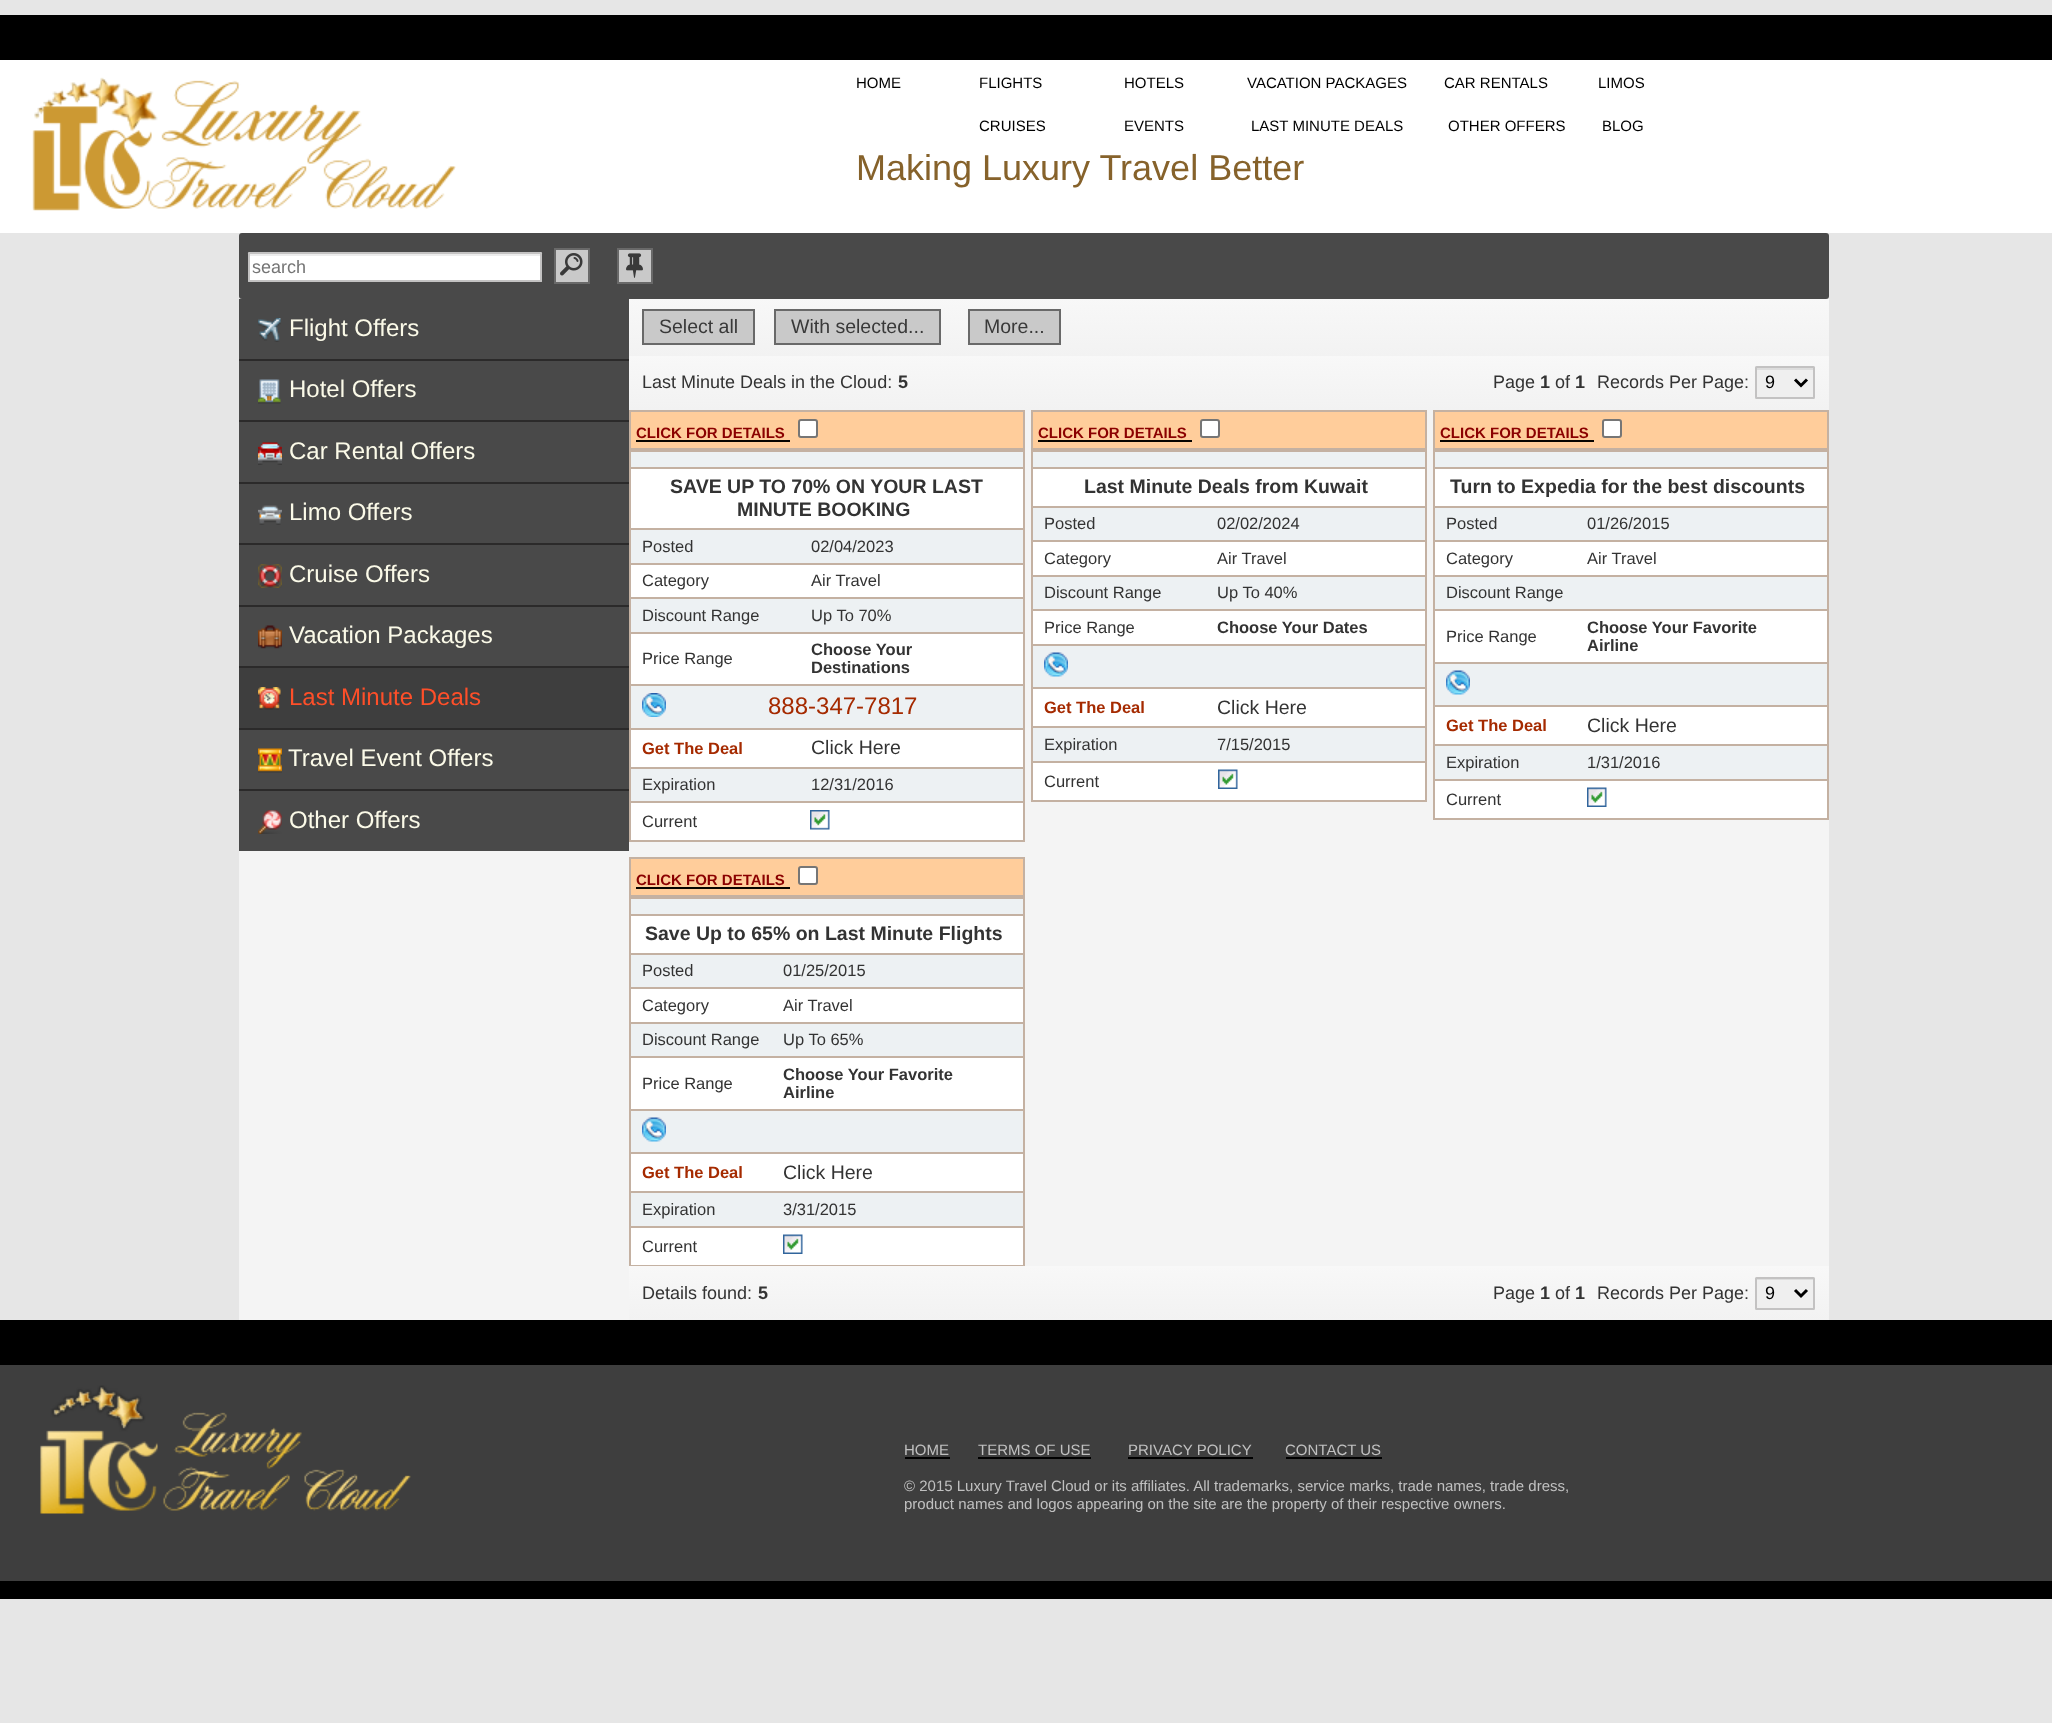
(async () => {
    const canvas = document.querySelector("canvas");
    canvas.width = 2052;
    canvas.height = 1723;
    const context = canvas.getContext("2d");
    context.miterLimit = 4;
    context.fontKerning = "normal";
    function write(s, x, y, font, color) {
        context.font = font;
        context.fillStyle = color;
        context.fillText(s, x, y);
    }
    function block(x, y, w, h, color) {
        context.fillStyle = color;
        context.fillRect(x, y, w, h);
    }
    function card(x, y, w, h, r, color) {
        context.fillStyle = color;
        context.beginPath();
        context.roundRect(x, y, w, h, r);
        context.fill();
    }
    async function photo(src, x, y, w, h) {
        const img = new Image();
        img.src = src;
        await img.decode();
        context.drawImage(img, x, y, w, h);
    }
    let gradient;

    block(0, 0, 2052, 1723, "rgb(230, 230, 230)");
    block(0, 15, 2052, 45, "rgb(0, 0, 0)");
    block(0, 60, 2052, 173, "rgb(255, 255, 255)");
    await photo("media/1.png", 32, 77, 424, 134);
    write("HOME", 856, 88, "15px Liberation Sans", "rgb(0, 0, 0)");
    write("FLIGHTS", 979, 88, "15px Liberation Sans", "rgb(0, 0, 0)");
    write("HOTELS", 1124, 88, "15px Liberation Sans", "rgb(0, 0, 0)");
    write("VACATION PACKAGES", 1247, 88, "15px Liberation Sans", "rgb(0, 0, 0)");
    write("CAR RENTALS", 1444, 88, "15px Liberation Sans", "rgb(0, 0, 0)");
    write("LIMOS", 1598, 88, "15px Liberation Sans", "rgb(0, 0, 0)");
    write("CRUISES", 979, 131, "15px Liberation Sans", "rgb(0, 0, 0)");
    write("EVENTS", 1124, 131, "15px Liberation Sans", "rgb(0, 0, 0)");
    write("LAST MINUTE DEALS", 1251, 131, "15px Liberation Sans", "rgb(0, 0, 0)");
    write("OTHER OFFERS", 1448, 131, "15px Liberation Sans", "rgb(0, 0, 0)");
    write("BLOG", 1602, 131, "15px Liberation Sans", "rgb(0, 0, 0)");
    write("Making Luxury Travel Better", 856, 180, "36px Liberation Sans", "rgb(134, 98, 43)");
    card(239, 233, 1590, 66, 3, "rgb(73, 73, 73)");
    card(248, 252, 294, 30, 1.5, "rgb(255, 255, 255)");
    block(249, 254, 291, 2, "rgb(236, 236, 236)");
    context.beginPath();
    context.roundRect(249, 253, 292, 28, 0.5);
    context.strokeStyle = "rgb(195, 194, 194)";
    context.lineWidth = 2;
    context.stroke();
    write("search", 252, 273, "18px Liberation Sans", "rgb(117, 117, 117)");
    context.fillStyle = "rgb(201, 201, 201)";
    context.beginPath();
    context.rect(555, 249, 34, 34);
    context.fill();
    context.strokeStyle = "rgb(105, 105, 105)";
    context.stroke();
    await photo("media/2.png", 560, 253, 23, 23);
    context.beginPath();
    context.rect(618, 249, 34, 34);
    context.fill();
    context.stroke();
    await photo("media/3.png", 626, 253, 17, 25);
    block(239, 851, 390, 469, "rgb(244, 244, 244)");
    block(239, 299, 390, 60, "rgb(73, 73, 73)");
    await photo("media/4.png", 258, 318, 23, 24);
    write("Flight Offers", 289, 336, "24px Liberation Sans", "rgb(251, 250, 232)");
    block(239, 361, 390, 59, "rgb(73, 73, 73)");
    block(239, 359, 390, 2, "rgb(43, 42, 42)");
    await photo("media/5.png", 258, 379, 23, 25);
    write("Hotel Offers", 289, 397, "24px Liberation Sans", "rgb(251, 250, 232)");
    block(239, 422, 390, 60, "rgb(73, 73, 73)");
    block(239, 420, 390, 2, "rgb(43, 42, 42)");
    await photo("media/6.png", 258, 442, 24, 23);
    write("Car Rental Offers", 289, 459, "24px Liberation Sans", "rgb(251, 250, 232)");
    block(239, 484, 390, 59, "rgb(73, 73, 73)");
    block(239, 482, 390, 2, "rgb(43, 42, 42)");
    await photo("media/7.png", 258, 505, 24, 20);
    write("Limo Offers", 289, 520, "24px Liberation Sans", "rgb(251, 250, 232)");
    block(239, 545, 390, 60, "rgb(73, 73, 73)");
    block(239, 543, 390, 2, "rgb(43, 42, 42)");
    await photo("media/8.png", 258, 564, 24, 24);
    write("Cruise Offers", 289, 582, "24px Liberation Sans", "rgb(251, 250, 232)");
    block(239, 607, 390, 59, "rgb(73, 73, 73)");
    block(239, 605, 390, 2, "rgb(43, 42, 42)");
    await photo("media/9.png", 258, 625, 24, 24);
    write("Vacation Packages", 289, 643, "24px Liberation Sans", "rgb(251, 250, 232)");
    block(239, 668, 390, 60, "rgb(62, 62, 62)");
    block(239, 666, 390, 2, "rgb(43, 42, 42)");
    await photo("media/10.png", 258, 687, 23, 23);
    write("Last Minute Deals", 289, 705, "24px Liberation Sans", "rgb(254, 79, 41)");
    block(239, 730, 390, 59, "rgb(73, 73, 73)");
    block(239, 728, 390, 2, "rgb(43, 42, 42)");
    await photo("media/11.png", 258, 748, 24, 25);
    write("Travel Event Offers", 288, 766, "24px Liberation Sans", "rgb(251, 250, 232)");
    block(239, 791, 390, 60, "rgb(73, 73, 73)");
    block(239, 789, 390, 2, "rgb(43, 42, 42)");
    await photo("media/12.png", 258, 810, 24, 24);
    write("Other Offers", 289, 828, "24px Liberation Sans", "rgb(251, 250, 232)");
    block(629, 410, 1200, 856, "rgb(244, 244, 244)");
    gradient = context.createLinearGradient(1229, 298, 1229, 356);
    gradient.addColorStop(0, "rgb(248, 248, 248)");
    gradient.addColorStop(1, "rgb(242, 242, 242)");
    context.fillStyle = gradient;
    context.fillRect(629, 299, 1200, 57);
    context.fillStyle = "rgb(201, 201, 201)";
    context.beginPath();
    context.rect(643, 310, 111, 34);
    context.fill();
    context.stroke();
    write("Select all", 659, 333, "19.5px Liberation Sans", "rgb(57, 57, 57)");
    context.fillStyle = "rgb(201, 201, 201)";
    context.beginPath();
    context.rect(775, 310, 165, 34);
    context.fill();
    context.stroke();
    write("With selected...", 791, 333, "19.5px Liberation Sans", "rgb(57, 57, 57)");
    context.fillStyle = "rgb(201, 201, 201)";
    context.beginPath();
    context.rect(969, 310, 91, 34);
    context.fill();
    context.stroke();
    write("More...", 984, 333, "19.5px Liberation Sans", "rgb(57, 57, 57)");
    gradient = context.createLinearGradient(1229, 355, 1229, 410);
    gradient.addColorStop(0, "rgb(248, 248, 248)");
    gradient.addColorStop(1, "rgb(242, 242, 242)");
    context.fillStyle = gradient;
    context.fillRect(629, 356, 1200, 54);
    write("Last Minute Deals in the Cloud:", 642, 388, "18px Liberation Sans", "rgb(51, 51, 51)");
    write("5", 898, 388, "bold 18px Liberation Sans", "rgb(51, 51, 51)");
    write("Page", 1493, 388, "18px Liberation Sans", "rgb(51, 51, 51)");
    write("1", 1540, 388, "bold 18px Liberation Sans", "rgb(51, 51, 51)");
    write("of", 1555, 388, "18px Liberation Sans", "rgb(51, 51, 51)");
    write("1", 1575, 388, "bold 18px Liberation Sans", "rgb(51, 51, 51)");
    write("Records Per Page:", 1597, 388, "18px Liberation Sans", "rgb(51, 51, 51)");
    card(1755, 366, 60, 33, 1.5, "rgb(239, 239, 239)");
    block(1757, 368, 57, 2, "rgb(221, 221, 221)");
    context.beginPath();
    context.roundRect(1756, 367, 58, 31, 0.5);
    context.strokeStyle = "rgb(195, 194, 194)";
    context.stroke();
    context.beginPath();
    context.moveTo(1795, 379.5);
    context.lineTo(1801, 385.5);
    context.lineTo(1807, 379.5);
    context.strokeStyle = "rgb(0, 0, 0)";
    context.lineWidth = 3;
    context.stroke();
    write("9", 1765, 388, "18px Liberation Sans", "rgb(0, 0, 0)");
    context.fillStyle = "rgb(255, 205, 155)";
    context.beginPath();
    context.rect(630, 411, 394, 38);
    context.fill();
    context.strokeStyle = "rgb(196, 177, 162)";
    context.lineWidth = 2;
    context.stroke();
    write("CLICK FOR DETAILS", 636, 438, "bold 15px Liberation Sans", "rgb(139, 0, 0)");
    block(636, 440, 154, 2, "rgb(7, 4, 0)");
    context.fillStyle = "rgb(255, 255, 255)";
    context.beginPath();
    context.roundRect(799, 420, 18, 17, 2);
    context.fill();
    context.strokeStyle = "rgb(118, 118, 118)";
    context.stroke();
    block(631, 452, 392, 15, "rgb(237, 241, 243)");
    block(629, 450, 396, 2, "rgb(196, 177, 162)");
    block(1023, 450, 2, 17, "rgb(196, 177, 162)");
    block(629, 450, 2, 17, "rgb(196, 177, 162)");
    block(631, 469, 392, 59, "rgb(255, 255, 255)");
    block(629, 467, 396, 2, "rgb(196, 177, 162)");
    block(1023, 467, 2, 61, "rgb(196, 177, 162)");
    block(629, 467, 2, 61, "rgb(196, 177, 162)");
    write("SAVE UP TO 70% ON YOUR LAST", 670, 493, "bold 19.5px Liberation Sans", "rgb(51, 51, 51)");
    write("MINUTE BOOKING", 737, 516, "bold 19.5px Liberation Sans", "rgb(51, 51, 51)");
    block(631, 530, 392, 33, "rgb(237, 241, 243)");
    block(629, 528, 396, 2, "rgb(196, 177, 162)");
    block(629, 528, 2, 35, "rgb(196, 177, 162)");
    write("Posted", 642, 552, "16.5px Liberation Sans", "rgb(51, 51, 51)");
    block(1023, 528, 2, 35, "rgb(196, 177, 162)");
    write("02/04/2023", 811, 552, "16.5px Liberation Sans", "rgb(51, 51, 51)");
    block(631, 565, 392, 32, "rgb(255, 255, 255)");
    block(629, 563, 396, 2, "rgb(196, 177, 162)");
    block(629, 563, 2, 34, "rgb(196, 177, 162)");
    write("Category", 642, 586, "16.5px Liberation Sans", "rgb(51, 51, 51)");
    block(1023, 563, 2, 34, "rgb(196, 177, 162)");
    write("Air Travel", 811, 586, "16.5px Liberation Sans", "rgb(51, 51, 51)");
    block(631, 599, 392, 33, "rgb(237, 241, 243)");
    block(629, 597, 396, 2, "rgb(196, 177, 162)");
    block(629, 597, 2, 35, "rgb(196, 177, 162)");
    write("Discount Range", 642, 621, "16.5px Liberation Sans", "rgb(51, 51, 51)");
    block(1023, 597, 2, 35, "rgb(196, 177, 162)");
    write("Up To 70%", 811, 621, "16.5px Liberation Sans", "rgb(51, 51, 51)");
    block(631, 634, 392, 50, "rgb(255, 255, 255)");
    block(629, 632, 396, 2, "rgb(196, 177, 162)");
    block(629, 632, 2, 52, "rgb(196, 177, 162)");
    write("Price Range", 642, 664, "16.5px Liberation Sans", "rgb(51, 51, 51)");
    block(1023, 632, 2, 52, "rgb(196, 177, 162)");
    write("Choose Your", 811, 655, "bold 16.5px Liberation Sans", "rgb(51, 51, 51)");
    write("Destinations", 811, 673, "bold 16.5px Liberation Sans", "rgb(51, 51, 51)");
    block(631, 686, 392, 42, "rgb(237, 241, 243)");
    block(629, 684, 396, 2, "rgb(196, 177, 162)");
    block(1023, 684, 2, 44, "rgb(196, 177, 162)");
    block(629, 684, 2, 44, "rgb(196, 177, 162)");
    await photo("media/13.png", 642, 693, 24, 24);
    write("888-347-7817", 768, 714, "24px Liberation Sans", "rgb(165, 42, 0)");
    block(631, 730, 392, 37, "rgb(255, 255, 255)");
    block(629, 728, 396, 2, "rgb(196, 177, 162)");
    block(629, 728, 2, 39, "rgb(196, 177, 162)");
    write("Get The Deal", 642, 754, "bold 16.5px Liberation Sans", "rgb(165, 42, 0)");
    block(1023, 728, 2, 39, "rgb(196, 177, 162)");
    write("Click Here", 811, 754, "19.5px Liberation Sans", "rgb(51, 51, 51)");
    block(631, 769, 392, 32, "rgb(237, 241, 243)");
    block(629, 767, 396, 2, "rgb(196, 177, 162)");
    block(629, 767, 2, 34, "rgb(196, 177, 162)");
    write("Expiration", 642, 790, "16.5px Liberation Sans", "rgb(51, 51, 51)");
    block(1023, 767, 2, 34, "rgb(196, 177, 162)");
    write("12/31/2016", 811, 790, "16.5px Liberation Sans", "rgb(51, 51, 51)");
    block(631, 803, 392, 37, "rgb(255, 255, 255)");
    block(629, 801, 396, 2, "rgb(196, 177, 162)");
    block(629, 840, 169, 2, "rgb(196, 177, 162)");
    block(629, 801, 2, 41, "rgb(196, 177, 162)");
    write("Current", 642, 827, "16.5px Liberation Sans", "rgb(51, 51, 51)");
    block(1023, 801, 2, 41, "rgb(196, 177, 162)");
    block(798, 840, 227, 2, "rgb(196, 177, 162)");
    await photo("media/14.png", 810, 810, 20, 20);
    context.fillStyle = "rgb(255, 205, 155)";
    context.beginPath();
    context.rect(1032, 411, 394, 38);
    context.fill();
    context.strokeStyle = "rgb(196, 177, 162)";
    context.stroke();
    write("CLICK FOR DETAILS", 1038, 438, "bold 15px Liberation Sans", "rgb(139, 0, 0)");
    block(1038, 440, 154, 2, "rgb(7, 4, 0)");
    context.fillStyle = "rgb(255, 255, 255)";
    context.beginPath();
    context.roundRect(1201, 420, 18, 17, 2);
    context.fill();
    context.strokeStyle = "rgb(118, 118, 118)";
    context.stroke();
    block(1033, 452, 392, 15, "rgb(237, 241, 243)");
    block(1031, 450, 396, 2, "rgb(196, 177, 162)");
    block(1425, 450, 2, 17, "rgb(196, 177, 162)");
    block(1031, 450, 2, 17, "rgb(196, 177, 162)");
    block(1033, 469, 392, 37, "rgb(255, 255, 255)");
    block(1031, 467, 396, 2, "rgb(196, 177, 162)");
    block(1425, 467, 2, 39, "rgb(196, 177, 162)");
    block(1031, 467, 2, 39, "rgb(196, 177, 162)");
    write("Last Minute Deals from Kuwait", 1084, 493, "bold 19.5px Liberation Sans", "rgb(51, 51, 51)");
    block(1033, 508, 392, 32, "rgb(237, 241, 243)");
    block(1031, 506, 396, 2, "rgb(196, 177, 162)");
    block(1031, 506, 2, 34, "rgb(196, 177, 162)");
    write("Posted", 1044, 529, "16.5px Liberation Sans", "rgb(51, 51, 51)");
    block(1425, 506, 2, 34, "rgb(196, 177, 162)");
    write("02/02/2024", 1217, 529, "16.5px Liberation Sans", "rgb(51, 51, 51)");
    block(1033, 542, 392, 33, "rgb(255, 255, 255)");
    block(1031, 540, 396, 2, "rgb(196, 177, 162)");
    block(1031, 540, 2, 35, "rgb(196, 177, 162)");
    write("Category", 1044, 564, "16.5px Liberation Sans", "rgb(51, 51, 51)");
    block(1425, 540, 2, 35, "rgb(196, 177, 162)");
    write("Air Travel", 1217, 564, "16.5px Liberation Sans", "rgb(51, 51, 51)");
    block(1033, 577, 392, 32, "rgb(237, 241, 243)");
    block(1031, 575, 396, 2, "rgb(196, 177, 162)");
    block(1031, 575, 2, 34, "rgb(196, 177, 162)");
    write("Discount Range", 1044, 598, "16.5px Liberation Sans", "rgb(51, 51, 51)");
    block(1425, 575, 2, 34, "rgb(196, 177, 162)");
    write("Up To 40%", 1217, 598, "16.5px Liberation Sans", "rgb(51, 51, 51)");
    block(1033, 611, 392, 33, "rgb(255, 255, 255)");
    block(1031, 609, 396, 2, "rgb(196, 177, 162)");
    block(1031, 609, 2, 35, "rgb(196, 177, 162)");
    write("Price Range", 1044, 633, "16.5px Liberation Sans", "rgb(51, 51, 51)");
    block(1425, 609, 2, 35, "rgb(196, 177, 162)");
    write("Choose Your Dates", 1217, 633, "bold 16.5px Liberation Sans", "rgb(51, 51, 51)");
    block(1033, 646, 392, 41, "rgb(237, 241, 243)");
    block(1031, 644, 396, 2, "rgb(196, 177, 162)");
    block(1425, 644, 2, 43, "rgb(196, 177, 162)");
    block(1031, 644, 2, 43, "rgb(196, 177, 162)");
    await photo("media/15.png", 1044, 652, 24, 25);
    block(1033, 689, 392, 37, "rgb(255, 255, 255)");
    block(1031, 687, 396, 2, "rgb(196, 177, 162)");
    block(1031, 687, 2, 39, "rgb(196, 177, 162)");
    write("Get The Deal", 1044, 713, "bold 16.5px Liberation Sans", "rgb(165, 42, 0)");
    block(1425, 687, 2, 39, "rgb(196, 177, 162)");
    write("Click Here", 1217, 714, "19.5px Liberation Sans", "rgb(51, 51, 51)");
    block(1033, 728, 392, 33, "rgb(237, 241, 243)");
    block(1031, 726, 396, 2, "rgb(196, 177, 162)");
    block(1031, 726, 2, 35, "rgb(196, 177, 162)");
    write("Expiration", 1044, 750, "16.5px Liberation Sans", "rgb(51, 51, 51)");
    block(1425, 726, 2, 35, "rgb(196, 177, 162)");
    write("7/15/2015", 1217, 750, "16.5px Liberation Sans", "rgb(51, 51, 51)");
    block(1033, 763, 392, 37, "rgb(255, 255, 255)");
    block(1031, 761, 396, 2, "rgb(196, 177, 162)");
    block(1031, 800, 175, 2, "rgb(196, 177, 162)");
    block(1031, 761, 2, 40, "rgb(196, 177, 162)");
    write("Current", 1044, 787, "16.5px Liberation Sans", "rgb(51, 51, 51)");
    block(1425, 761, 2, 40, "rgb(196, 177, 162)");
    block(1206, 800, 221, 2, "rgb(196, 177, 162)");
    await photo("media/16.png", 1218, 769, 20, 20);
    context.fillStyle = "rgb(255, 205, 155)";
    context.beginPath();
    context.rect(1434, 411, 394, 38);
    context.fill();
    context.strokeStyle = "rgb(196, 177, 162)";
    context.stroke();
    write("CLICK FOR DETAILS", 1440, 438, "bold 15px Liberation Sans", "rgb(139, 0, 0)");
    block(1440, 440, 154, 2, "rgb(7, 4, 0)");
    context.fillStyle = "rgb(255, 255, 255)";
    context.beginPath();
    context.roundRect(1603, 420, 18, 17, 2);
    context.fill();
    context.strokeStyle = "rgb(118, 118, 118)";
    context.stroke();
    block(1435, 452, 392, 15, "rgb(237, 241, 243)");
    block(1433, 450, 396, 2, "rgb(196, 177, 162)");
    block(1827, 450, 2, 17, "rgb(196, 177, 162)");
    block(1433, 450, 2, 17, "rgb(196, 177, 162)");
    block(1435, 469, 392, 37, "rgb(255, 255, 255)");
    block(1433, 467, 396, 2, "rgb(196, 177, 162)");
    block(1827, 467, 2, 39, "rgb(196, 177, 162)");
    block(1433, 467, 2, 39, "rgb(196, 177, 162)");
    write("Turn to Expedia for the best discounts", 1450, 493, "bold 19.5px Liberation Sans", "rgb(51, 51, 51)");
    block(1435, 508, 392, 32, "rgb(237, 241, 243)");
    block(1433, 506, 396, 2, "rgb(196, 177, 162)");
    block(1433, 506, 2, 34, "rgb(196, 177, 162)");
    write("Posted", 1446, 529, "16.5px Liberation Sans", "rgb(51, 51, 51)");
    block(1827, 506, 2, 34, "rgb(196, 177, 162)");
    write("01/26/2015", 1587, 529, "16.5px Liberation Sans", "rgb(51, 51, 51)");
    block(1435, 542, 392, 33, "rgb(255, 255, 255)");
    block(1433, 540, 396, 2, "rgb(196, 177, 162)");
    block(1433, 540, 2, 35, "rgb(196, 177, 162)");
    write("Category", 1446, 564, "16.5px Liberation Sans", "rgb(51, 51, 51)");
    block(1827, 540, 2, 35, "rgb(196, 177, 162)");
    write("Air Travel", 1587, 564, "16.5px Liberation Sans", "rgb(51, 51, 51)");
    block(1435, 577, 392, 32, "rgb(237, 241, 243)");
    block(1433, 575, 396, 2, "rgb(196, 177, 162)");
    block(1433, 575, 2, 34, "rgb(196, 177, 162)");
    write("Discount Range", 1446, 598, "16.5px Liberation Sans", "rgb(51, 51, 51)");
    block(1827, 575, 2, 34, "rgb(196, 177, 162)");
    block(1435, 611, 392, 51, "rgb(255, 255, 255)");
    block(1433, 609, 396, 2, "rgb(196, 177, 162)");
    block(1433, 609, 2, 53, "rgb(196, 177, 162)");
    write("Price Range", 1446, 642, "16.5px Liberation Sans", "rgb(51, 51, 51)");
    block(1827, 609, 2, 53, "rgb(196, 177, 162)");
    write("Choose Your Favorite", 1587, 633, "bold 16.5px Liberation Sans", "rgb(51, 51, 51)");
    write("Airline", 1587, 651, "bold 16.5px Liberation Sans", "rgb(51, 51, 51)");
    block(1435, 664, 392, 41, "rgb(237, 241, 243)");
    block(1433, 662, 396, 2, "rgb(196, 177, 162)");
    block(1827, 662, 2, 43, "rgb(196, 177, 162)");
    block(1433, 662, 2, 43, "rgb(196, 177, 162)");
    await photo("media/17.png", 1446, 670, 24, 25);
    block(1435, 707, 392, 37, "rgb(255, 255, 255)");
    block(1433, 705, 396, 2, "rgb(196, 177, 162)");
    block(1433, 705, 2, 39, "rgb(196, 177, 162)");
    write("Get The Deal", 1446, 731, "bold 16.5px Liberation Sans", "rgb(165, 42, 0)");
    block(1827, 705, 2, 39, "rgb(196, 177, 162)");
    write("Click Here", 1587, 732, "19.5px Liberation Sans", "rgb(51, 51, 51)");
    block(1435, 746, 392, 33, "rgb(237, 241, 243)");
    block(1433, 744, 396, 2, "rgb(196, 177, 162)");
    block(1433, 744, 2, 35, "rgb(196, 177, 162)");
    write("Expiration", 1446, 768, "16.5px Liberation Sans", "rgb(51, 51, 51)");
    block(1827, 744, 2, 35, "rgb(196, 177, 162)");
    write("1/31/2016", 1587, 768, "16.5px Liberation Sans", "rgb(51, 51, 51)");
    block(1435, 781, 392, 37, "rgb(255, 255, 255)");
    block(1433, 779, 396, 2, "rgb(196, 177, 162)");
    block(1433, 818, 142, 2, "rgb(196, 177, 162)");
    block(1433, 779, 2, 40, "rgb(196, 177, 162)");
    write("Current", 1446, 805, "16.5px Liberation Sans", "rgb(51, 51, 51)");
    block(1827, 779, 2, 40, "rgb(196, 177, 162)");
    block(1575, 818, 254, 2, "rgb(196, 177, 162)");
    await photo("media/18.png", 1587, 787, 20, 20);
    context.fillStyle = "rgb(255, 205, 155)";
    context.beginPath();
    context.rect(630, 858, 394, 38);
    context.fill();
    context.strokeStyle = "rgb(196, 177, 162)";
    context.stroke();
    write("CLICK FOR DETAILS", 636, 885, "bold 15px Liberation Sans", "rgb(139, 0, 0)");
    block(636, 887, 154, 2, "rgb(7, 4, 0)");
    context.fillStyle = "rgb(255, 255, 255)";
    context.beginPath();
    context.roundRect(799, 867, 18, 17, 2);
    context.fill();
    context.strokeStyle = "rgb(118, 118, 118)";
    context.stroke();
    block(631, 899, 392, 15, "rgb(237, 241, 243)");
    block(629, 897, 396, 2, "rgb(196, 177, 162)");
    block(1023, 897, 2, 17, "rgb(196, 177, 162)");
    block(629, 897, 2, 17, "rgb(196, 177, 162)");
    block(631, 916, 392, 37, "rgb(255, 255, 255)");
    block(629, 914, 396, 2, "rgb(196, 177, 162)");
    block(1023, 914, 2, 39, "rgb(196, 177, 162)");
    block(629, 914, 2, 39, "rgb(196, 177, 162)");
    write("Save Up to 65% on Last Minute Flights", 645, 940, "bold 19.5px Liberation Sans", "rgb(51, 51, 51)");
    block(631, 955, 392, 32, "rgb(237, 241, 243)");
    block(629, 953, 396, 2, "rgb(196, 177, 162)");
    block(629, 953, 2, 34, "rgb(196, 177, 162)");
    write("Posted", 642, 976, "16.5px Liberation Sans", "rgb(51, 51, 51)");
    block(1023, 953, 2, 34, "rgb(196, 177, 162)");
    write("01/25/2015", 783, 976, "16.5px Liberation Sans", "rgb(51, 51, 51)");
    block(631, 989, 392, 33, "rgb(255, 255, 255)");
    block(629, 987, 396, 2, "rgb(196, 177, 162)");
    block(629, 987, 2, 35, "rgb(196, 177, 162)");
    write("Category", 642, 1011, "16.5px Liberation Sans", "rgb(51, 51, 51)");
    block(1023, 987, 2, 35, "rgb(196, 177, 162)");
    write("Air Travel", 783, 1011, "16.5px Liberation Sans", "rgb(51, 51, 51)");
    block(631, 1024, 392, 32, "rgb(237, 241, 243)");
    block(629, 1022, 396, 2, "rgb(196, 177, 162)");
    block(629, 1022, 2, 34, "rgb(196, 177, 162)");
    write("Discount Range", 642, 1045, "16.5px Liberation Sans", "rgb(51, 51, 51)");
    block(1023, 1022, 2, 34, "rgb(196, 177, 162)");
    write("Up To 65%", 783, 1045, "16.5px Liberation Sans", "rgb(51, 51, 51)");
    block(631, 1058, 392, 51, "rgb(255, 255, 255)");
    block(629, 1056, 396, 2, "rgb(196, 177, 162)");
    block(629, 1056, 2, 53, "rgb(196, 177, 162)");
    write("Price Range", 642, 1089, "16.5px Liberation Sans", "rgb(51, 51, 51)");
    block(1023, 1056, 2, 53, "rgb(196, 177, 162)");
    write("Choose Your Favorite", 783, 1080, "bold 16.5px Liberation Sans", "rgb(51, 51, 51)");
    write("Airline", 783, 1098, "bold 16.5px Liberation Sans", "rgb(51, 51, 51)");
    block(631, 1111, 392, 41, "rgb(237, 241, 243)");
    block(629, 1109, 396, 2, "rgb(196, 177, 162)");
    block(1023, 1109, 2, 43, "rgb(196, 177, 162)");
    block(629, 1109, 2, 43, "rgb(196, 177, 162)");
    await photo("media/17.png", 642, 1117, 24, 25);
    block(631, 1154, 392, 37, "rgb(255, 255, 255)");
    block(629, 1152, 396, 2, "rgb(196, 177, 162)");
    block(629, 1152, 2, 39, "rgb(196, 177, 162)");
    write("Get The Deal", 642, 1178, "bold 16.5px Liberation Sans", "rgb(165, 42, 0)");
    block(1023, 1152, 2, 39, "rgb(196, 177, 162)");
    write("Click Here", 783, 1179, "19.5px Liberation Sans", "rgb(51, 51, 51)");
    block(631, 1193, 392, 33, "rgb(237, 241, 243)");
    block(629, 1191, 396, 2, "rgb(196, 177, 162)");
    block(629, 1191, 2, 35, "rgb(196, 177, 162)");
    write("Expiration", 642, 1215, "16.5px Liberation Sans", "rgb(51, 51, 51)");
    block(1023, 1191, 2, 35, "rgb(196, 177, 162)");
    write("3/31/2015", 783, 1215, "16.5px Liberation Sans", "rgb(51, 51, 51)");
    block(631, 1228, 392, 37, "rgb(255, 255, 255)");
    block(629, 1226, 396, 2, "rgb(196, 177, 162)");
    block(629, 1265, 142, 1, "rgb(196, 177, 162)");
    block(629, 1226, 2, 40, "rgb(196, 177, 162)");
    write("Current", 642, 1252, "16.5px Liberation Sans", "rgb(51, 51, 51)");
    block(1023, 1226, 2, 40, "rgb(196, 177, 162)");
    block(771, 1265, 254, 1, "rgb(196, 177, 162)");
    await photo("media/18.png", 783, 1234, 20, 20);
    gradient = context.createLinearGradient(1229, 1266, 1229, 1320);
    gradient.addColorStop(0, "rgb(248, 248, 248)");
    gradient.addColorStop(1, "rgb(242, 242, 242)");
    context.fillStyle = gradient;
    context.fillRect(629, 1266, 1200, 54);
    write("Details found:", 642, 1299, "18px Liberation Sans", "rgb(51, 51, 51)");
    write("5", 758, 1299, "bold 18px Liberation Sans", "rgb(51, 51, 51)");
    write("Page", 1493, 1299, "18px Liberation Sans", "rgb(51, 51, 51)");
    write("1", 1540, 1299, "bold 18px Liberation Sans", "rgb(51, 51, 51)");
    write("of", 1555, 1299, "18px Liberation Sans", "rgb(51, 51, 51)");
    write("1", 1575, 1299, "bold 18px Liberation Sans", "rgb(51, 51, 51)");
    write("Records Per Page:", 1597, 1299, "18px Liberation Sans", "rgb(51, 51, 51)");
    card(1755, 1277, 60, 33, 1.5, "rgb(239, 239, 239)");
    block(1757, 1279, 57, 1, "rgb(221, 221, 221)");
    context.beginPath();
    context.roundRect(1756, 1278, 58, 31, 0.5);
    context.strokeStyle = "rgb(195, 194, 194)";
    context.stroke();
    context.beginPath();
    context.moveTo(1795, 1290);
    context.lineTo(1801, 1296);
    context.lineTo(1807, 1290);
    context.strokeStyle = "rgb(0, 0, 0)";
    context.lineWidth = 3;
    context.stroke();
    write("9", 1765, 1299, "18px Liberation Sans", "rgb(0, 0, 0)");
    block(0, 1320, 2052, 45, "rgb(0, 0, 0)");
    block(0, 1365, 2052, 216, "rgb(62, 62, 62)");
    await photo("media/19.png", 40, 1385, 371, 129);
    write("HOME", 904, 1455, "15px Liberation Sans", "rgb(192, 192, 192)");
    block(905, 1457, 45, 2, "rgb(0, 0, 0)");
    write("TERMS OF USE", 978, 1455, "15px Liberation Sans", "rgb(192, 192, 192)");
    block(978, 1457, 113, 2, "rgb(0, 0, 0)");
    write("PRIVACY POLICY", 1128, 1455, "15px Liberation Sans", "rgb(192, 192, 192)");
    block(1128, 1457, 125, 2, "rgb(0, 0, 0)");
    write("CONTACT US", 1285, 1455, "15px Liberation Sans", "rgb(192, 192, 192)");
    block(1286, 1457, 96, 2, "rgb(0, 0, 0)");
    write("© 2015 Luxury Travel Cloud or its affiliates. All trademarks, service marks, trade names, trade dress,", 904, 1491, "15px Liberation Sans", "rgb(192, 192, 192)");
    write("product names and logos appearing on the site are the property of their respective owners.", 904, 1509, "15px Liberation Sans", "rgb(192, 192, 192)");
    block(0, 1581, 2052, 18, "rgb(0, 0, 0)");
})();
